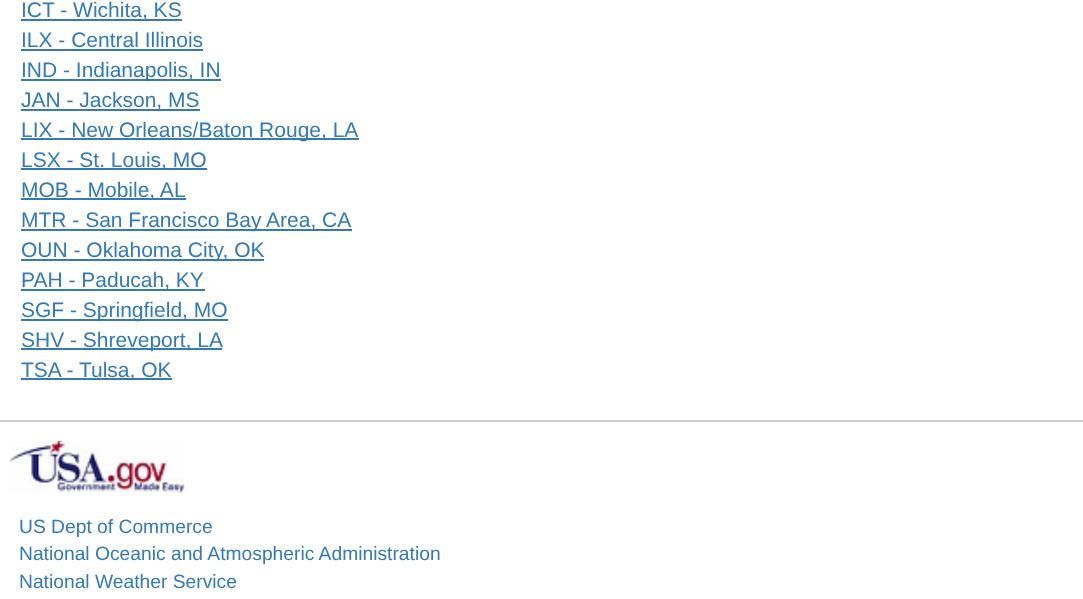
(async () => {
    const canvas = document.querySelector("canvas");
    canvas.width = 1083;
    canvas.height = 599;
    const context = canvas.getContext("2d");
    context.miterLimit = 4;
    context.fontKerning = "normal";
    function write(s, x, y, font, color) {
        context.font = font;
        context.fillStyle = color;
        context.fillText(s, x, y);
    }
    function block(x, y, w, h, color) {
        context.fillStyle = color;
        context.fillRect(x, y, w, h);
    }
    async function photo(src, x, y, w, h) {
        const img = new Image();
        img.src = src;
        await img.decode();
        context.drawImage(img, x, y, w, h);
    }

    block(0, 0, 1083, 599, "rgb(255, 255, 255)");
    block(21, 19, 161, 2, "rgb(51, 122, 183)");
    write("ICT - Wichita, KS", 21, 17, "21px Liberation Sans", "rgb(51, 122, 183)");
    write("ILX - Central Illinois", 21, 47, "21px Liberation Sans", "rgb(51, 122, 183)");
    block(21, 49, 182, 2, "rgb(51, 122, 183)");
    block(21, 79, 200, 2, "rgb(51, 122, 183)");
    write("IND - Indianapolis, IN", 21, 77, "21px Liberation Sans", "rgb(51, 122, 183)");
    block(21, 109, 179, 2, "rgb(51, 122, 183)");
    write("JAN - Jackson, MS", 21, 107, "21px Liberation Sans", "rgb(51, 122, 183)");
    block(21, 138, 338, 2, "rgb(51, 122, 183)");
    write("LIX - New Orleans/Baton Rouge, LA", 21, 137, "21px Liberation Sans", "rgb(51, 122, 183)");
    block(21, 168, 186, 2, "rgb(51, 122, 183)");
    write("LSX - St. Louis, MO", 21, 167, "21px Liberation Sans", "rgb(51, 122, 183)");
    block(21, 198, 165, 2, "rgb(51, 122, 183)");
    write("MOB - Mobile, AL", 21, 197, "21px Liberation Sans", "rgb(51, 122, 183)");
    block(21, 229, 331, 2, "rgb(51, 122, 183)");
    write("MTR - San Francisco Bay Area, CA", 21, 227, "21px Liberation Sans", "rgb(51, 122, 183)");
    block(21, 259, 243, 2, "rgb(51, 122, 183)");
    write("OUN - Oklahoma City, OK", 21, 257, "21px Liberation Sans", "rgb(51, 122, 183)");
    block(21, 289, 184, 2, "rgb(51, 122, 183)");
    write("PAH - Paducah, KY", 21, 287, "21px Liberation Sans", "rgb(51, 122, 183)");
    block(21, 319, 207, 2, "rgb(51, 122, 183)");
    write("SGF - Springfield, MO", 21, 317, "21px Liberation Sans", "rgb(51, 122, 183)");
    block(21, 348, 201, 2, "rgb(51, 122, 183)");
    write("SHV - Shreveport, LA", 21, 347, "21px Liberation Sans", "rgb(51, 122, 183)");
    block(21, 378, 151, 2, "rgb(51, 122, 183)");
    write("TSA - Tulsa, OK", 21, 377, "21px Liberation Sans", "rgb(51, 122, 183)");
    block(0, 420, 1083, 2, "rgb(204, 204, 204)");
    await photo("media/1.png", 8, 440, 177, 53);
    write("US Dept of Commerce", 19, 533, "19.25px Liberation Sans", "rgb(51, 122, 183)");
    write("National Oceanic and Atmospheric Administration", 19, 560, "19.25px Liberation Sans", "rgb(51, 122, 183)");
    write("National Weather Service", 19, 588, "19.25px Liberation Sans", "rgb(51, 122, 183)");
})();
